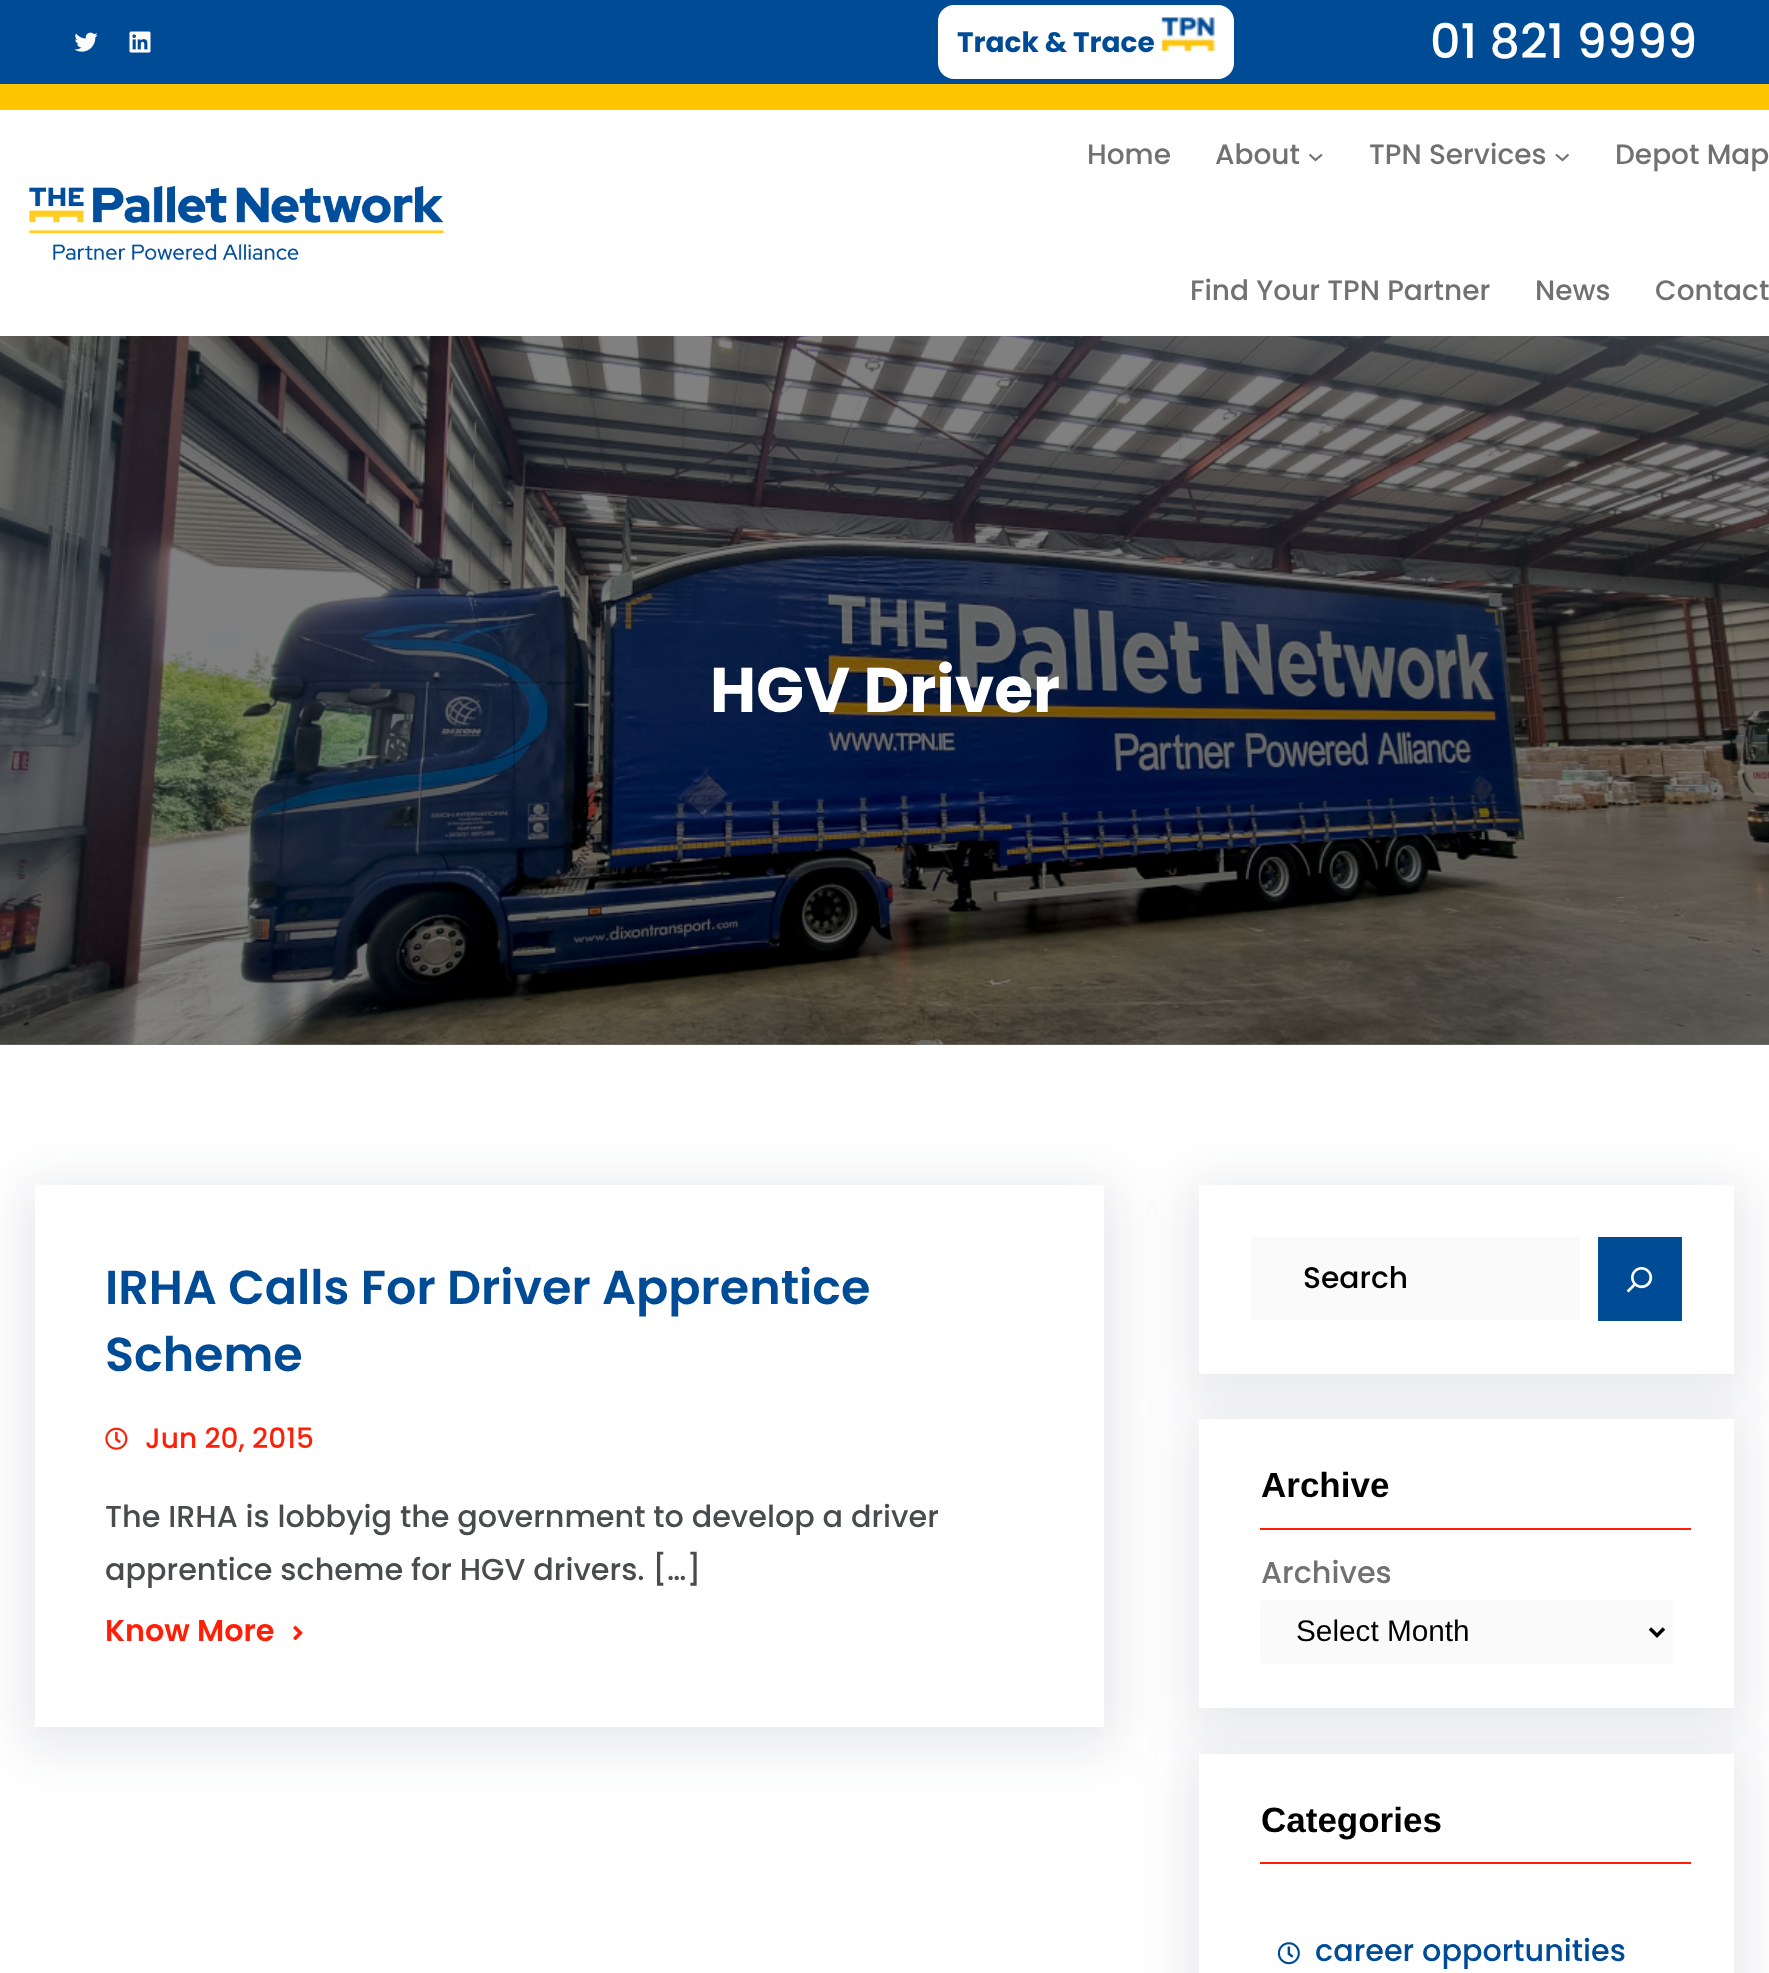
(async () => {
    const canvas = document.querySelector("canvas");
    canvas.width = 1769;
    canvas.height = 1973;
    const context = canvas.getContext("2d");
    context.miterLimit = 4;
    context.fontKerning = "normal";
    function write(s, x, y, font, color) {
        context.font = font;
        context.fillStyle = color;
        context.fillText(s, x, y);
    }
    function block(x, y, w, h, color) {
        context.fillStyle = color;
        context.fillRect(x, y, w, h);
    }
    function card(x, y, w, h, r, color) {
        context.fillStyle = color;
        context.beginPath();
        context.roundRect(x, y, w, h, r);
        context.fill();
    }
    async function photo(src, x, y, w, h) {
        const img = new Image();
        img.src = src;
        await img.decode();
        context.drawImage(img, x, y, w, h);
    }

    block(0, 0, 1769, 1973, "rgb(255, 255, 255)");
    block(0, 1044, 1769, 1, "rgb(128, 128, 128)");
    block(0, 0, 1769, 84, "rgb(0, 75, 150)");
    block(0, 84, 1769, 26, "rgb(253, 198, 0)");
    await photo("media/1.png", 74, 32, 24, 20);
    await photo("media/2.png", 129, 31, 22, 22);
    card(938, 5, 296, 74, 16, "rgb(255, 255, 255)");
    write("Track & Trace", 957, 52, "bold 28px Poppins", "rgb(0, 75, 150)");
    await photo("media/3.png", 1161, 17, 54, 36);
    write("01 821 9999", 1430, 58, "500 47.6px Poppins", "rgb(255, 255, 255)");
    await photo("media/4.png", 29, 185, 415, 75);
    write("Home", 1087, 164, "500 28px Poppins", "rgb(113, 113, 113)");
    write("About", 1215, 164, "500 28px Poppins", "rgb(113, 113, 113)");
    context.beginPath();
    context.moveTo(1309.5, 154.5);
    context.lineTo(1315.5, 160);
    context.lineTo(1322, 154.5);
    context.strokeStyle = "rgb(113, 113, 113)";
    context.lineWidth = 2.1;
    context.stroke();
    write("TPN Services", 1369, 164, "500 28px Poppins", "rgb(113, 113, 113)");
    context.beginPath();
    context.moveTo(1556, 154.5);
    context.lineTo(1562.5, 160);
    context.lineTo(1568.5, 154.5);
    context.stroke();
    write("Depot Map", 1615, 164, "500 28px Poppins", "rgb(113, 113, 113)");
    write("Find Your TPN Partner", 1190, 300, "500 28px Poppins", "rgb(113, 113, 113)");
    write("News", 1535, 300, "500 28px Poppins", "rgb(113, 113, 113)");
    write("Contact", 1655, 300, "500 28px Poppins", "rgb(113, 113, 113)");
    await photo("media/5.png", 0, 336, 1769, 709);
    write("HGV Driver", 710, 712, "bold 63px Poppins", "rgb(255, 255, 255)");
    context.save();
    context.beginPath();
    context.moveTo(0, 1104);
    context.lineTo(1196, 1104);
    context.lineTo(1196, 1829);
    context.lineTo(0, 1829);
    context.closePath();
    context.moveTo(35, 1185);
    context.lineTo(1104, 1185);
    context.lineTo(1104, 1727);
    context.lineTo(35, 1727);
    context.closePath();
    context.clip("evenodd");
    context.fillStyle = "rgba(33, 37, 71, 0.1)";
    context.filter = "blur(26px)";
    context.beginPath();
    context.rect(23, 1183, 1094, 567);
    context.fill();
    context.filter = "none";
    context.restore();
    write("IRHA Calls For Driver Apprentice", 105, 1304, "600 47.6px Poppins", "rgb(0, 75, 150)");
    write("Scheme", 105, 1371, "600 47.6px Poppins", "rgb(0, 75, 150)");
    await photo("media/6.png", 105, 1427, 23, 23);
    write("Jun 20, 2015", 145, 1448, "500 28px Poppins", "rgb(254, 31, 7)");
    write("The IRHA is lobbyig the government to develop a driver", 105, 1527, "500 30.25px Poppins", "rgb(73, 76, 77)");
    write("apprentice scheme for HGV drivers. […]", 105, 1580, "500 30.25px Poppins", "rgb(73, 76, 77)");
    write("Know More", 105, 1641, "600 30.25px Poppins", "rgb(254, 31, 7)");
    await photo("media/7.png", 293, 1625, 10, 16);
    context.fillStyle = "rgba(33, 37, 71, 0.1)";
    context.filter = "blur(26px)";
    context.beginPath();
    context.rect(1187, 1183, 560, 214);
    context.fill();
    context.filter = "none";
    block(1199, 1185, 535, 189, "rgb(255, 255, 255)");
    block(1251, 1237, 329, 84, "rgb(250, 250, 250)");
    write("Search", 1303, 1288, "500 29.75px Poppins", "rgb(0, 0, 0)");
    block(1598, 1237, 84, 84, "rgb(0, 75, 150)");
    await photo("media/8.png", 1626, 1267, 27, 26);
    context.fillStyle = "rgba(33, 37, 71, 0.1)";
    context.filter = "blur(26px)";
    context.beginPath();
    context.rect(1187, 1418, 560, 313);
    context.fill();
    context.filter = "none";
    block(1199, 1419, 535, 289, "rgb(255, 255, 255)");
    write("Archive", 1261, 1497, "bold 35px Liberation Sans", "rgb(0, 0, 0)");
    block(1260, 1528, 431, 2, "rgb(254, 31, 7)");
    write("Archives", 1261, 1583, "500 30.25px Poppins", "rgb(113, 113, 113)");
    card(1260, 1600, 413, 64, 5, "rgb(250, 250, 250)");
    context.beginPath();
    context.moveTo(1650, 1628.5);
    context.lineTo(1657, 1635.5);
    context.lineTo(1664, 1628.5);
    context.strokeStyle = "rgb(0, 0, 0)";
    context.lineWidth = 3.5;
    context.stroke();
    write("Select Month", 1296, 1641, "29.75px Liberation Sans", "rgb(0, 0, 0)");
    context.fillStyle = "rgba(33, 37, 71, 0.1)";
    context.filter = "blur(26px)";
    context.beginPath();
    context.rect(1187, 1752, 560, 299);
    context.fill();
    context.filter = "none";
    block(1199, 1754, 535, 219, "rgb(255, 255, 255)");
    write("Categories", 1261, 1832, "bold 35px Liberation Sans", "rgb(0, 0, 0)");
    block(1260, 1862, 431, 2, "rgb(254, 31, 7)");
    await photo("media/9.png", 1277, 1942, 23, 23);
    write("career opportunities", 1315, 1961, "500 30.25px Poppins", "rgb(0, 75, 150)");
})();
